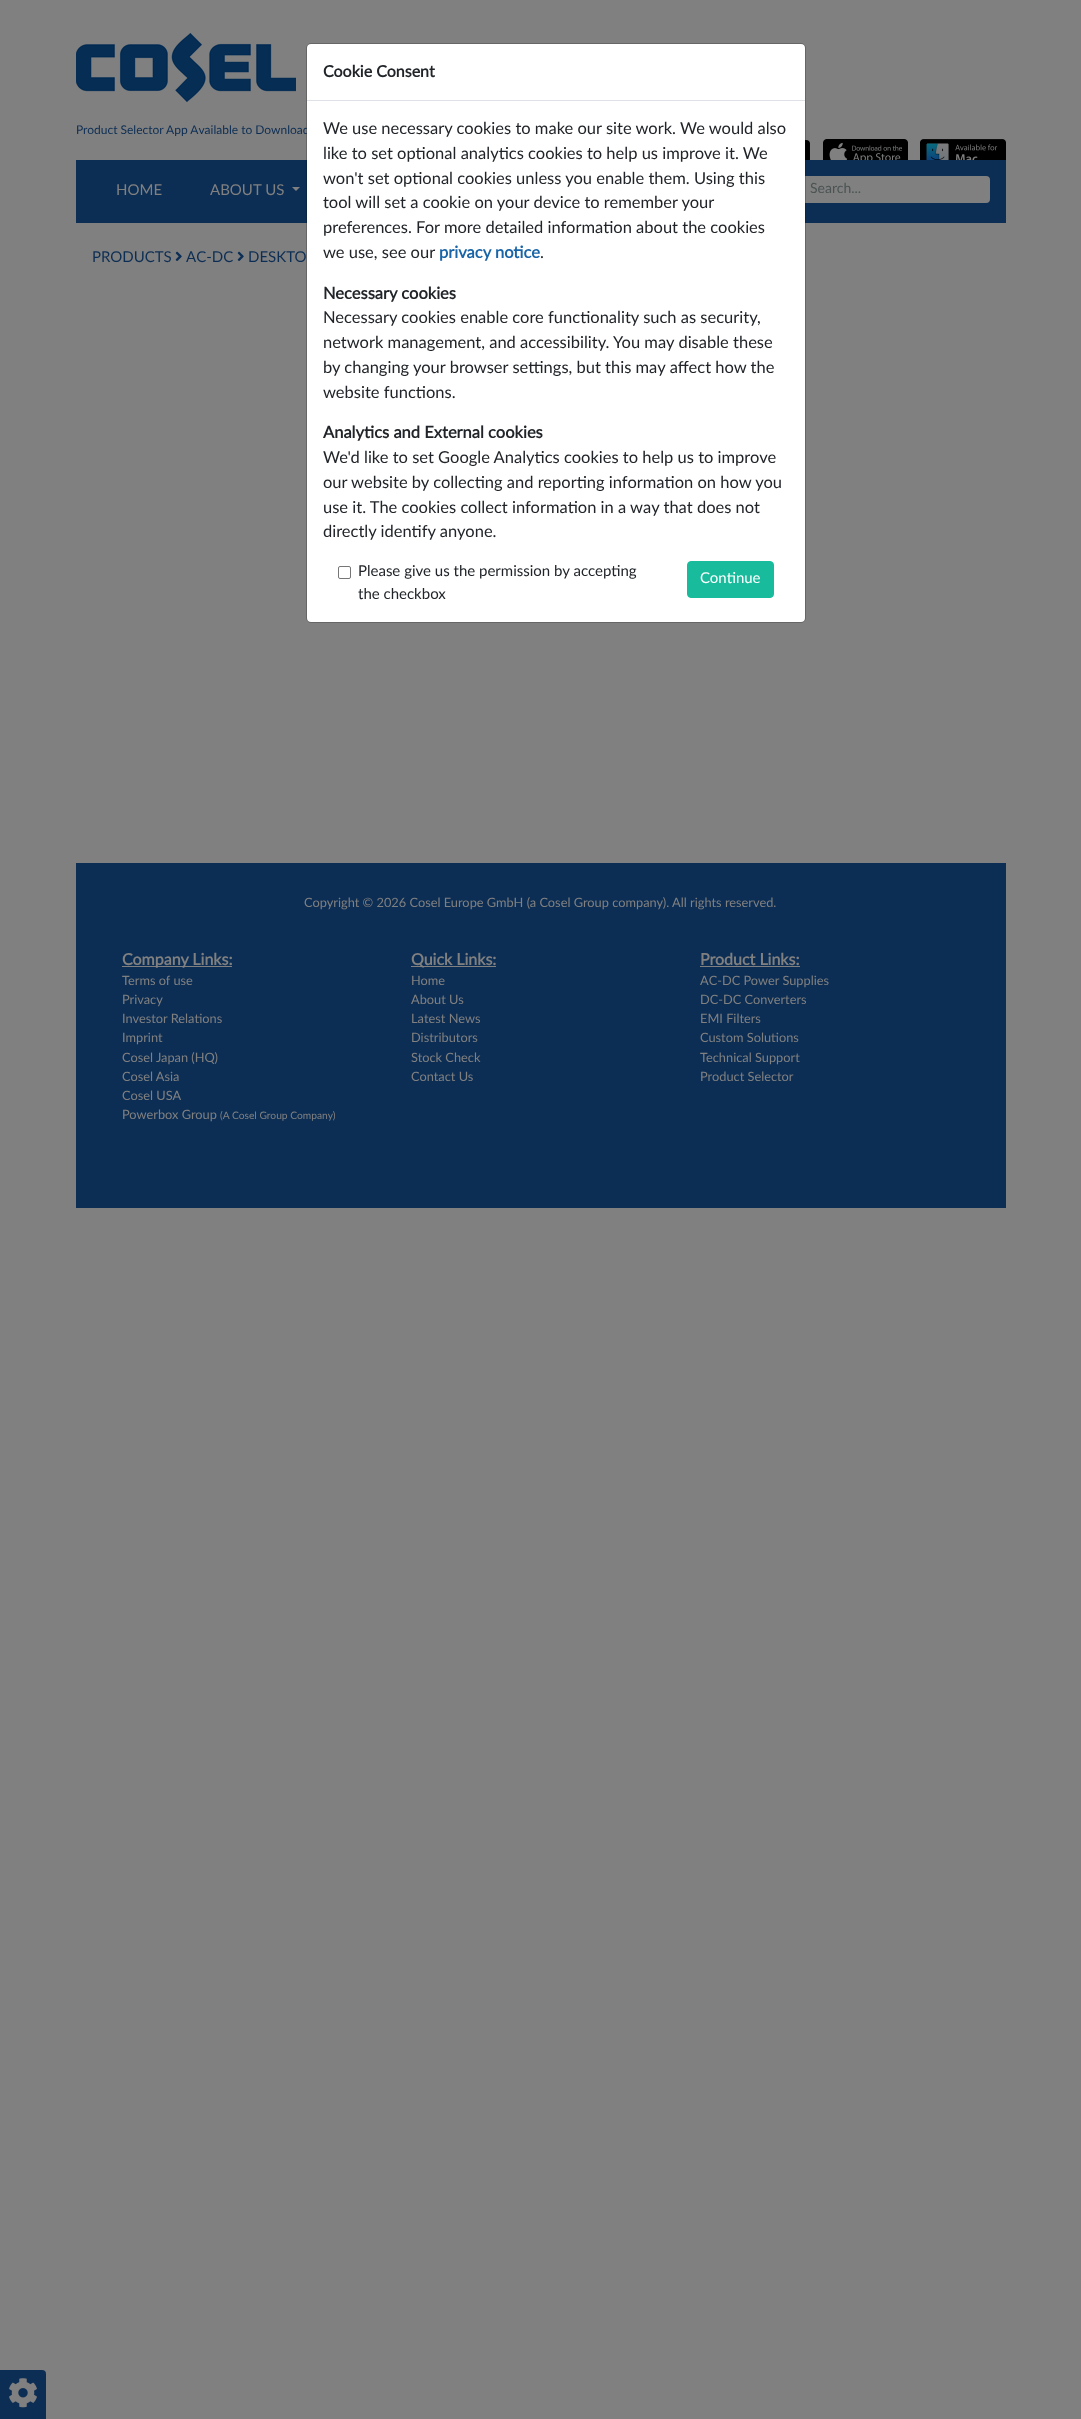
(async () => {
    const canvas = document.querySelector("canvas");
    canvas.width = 1081;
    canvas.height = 2419;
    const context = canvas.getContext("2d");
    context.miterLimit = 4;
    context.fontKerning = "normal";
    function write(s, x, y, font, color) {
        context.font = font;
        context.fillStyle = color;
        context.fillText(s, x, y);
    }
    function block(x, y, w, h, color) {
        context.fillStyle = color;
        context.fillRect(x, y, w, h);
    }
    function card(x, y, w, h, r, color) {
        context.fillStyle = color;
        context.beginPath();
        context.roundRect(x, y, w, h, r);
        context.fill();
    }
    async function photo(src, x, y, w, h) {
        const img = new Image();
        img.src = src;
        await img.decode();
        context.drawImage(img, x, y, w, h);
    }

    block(0, 0, 1081, 2419, "rgb(128, 128, 128)");
    write("Product Selector App Available to Download", 76, 134, "12px Lato", "rgb(13, 46, 84)");
    block(76, 160, 930, 63, "rgb(13, 46, 84)");
    context.fillStyle = "rgb(128, 128, 128)";
    context.beginPath();
    context.roundRect(798, 176, 192, 27, [3, 4, 4, 3]);
    context.fill();
    card(307, 44, 498, 578, 4, "rgb(255, 255, 255)");
    await photo("media/2.png", 805, 140, 5, 20);
    write("DESKTO", 248, 262, "15px Lato", "rgb(13, 46, 84)");
    context.beginPath();
    context.roundRect(306.5, 43.5, 499, 579, 4.5);
    context.strokeStyle = "rgba(0, 0, 0, 0.2)";
    context.stroke();
    block(307, 100, 498, 1, "rgb(222, 226, 230)");
    write("Cookie Consent", 323, 77, "bold 16px Lato", "rgb(33, 37, 41)");
    write("We use necessary cookies to make our site work. We would also", 323, 134, "16.5px Lato", "rgb(33, 37, 41)");
    write("like to set optional analytics cookies to help us improve it. We", 323, 159, "16.5px Lato", "rgb(33, 37, 41)");
    write("won't set optional cookies unless you enable them. Using this", 323, 184, "16.5px Lato", "rgb(33, 37, 41)");
    write("tool will set a cookie on your device to remember your", 323, 208, "16.5px Lato", "rgb(33, 37, 41)");
    write("preferences. For more detailed information about the cookies", 323, 233, "16.5px Lato", "rgb(33, 37, 41)");
    write("we use, see our", 323, 258, "16.5px Lato", "rgb(33, 37, 41)");
    write("privacy notice", 439, 258, "bold 16.5px Lato", "rgb(25, 101, 167)");
    write(".", 540, 258, "16.5px Lato", "rgb(33, 37, 41)");
    write("Necessary cookies", 323, 299, "bold 16.5px Lato", "rgb(33, 37, 41)");
    write("Necessary cookies enable core functionality such as security,", 323, 323, "16.5px Lato", "rgb(33, 37, 41)");
    write("network management, and accessibility. You may disable these", 323, 348, "16.5px Lato", "rgb(33, 37, 41)");
    write("by changing your browser settings, but this may affect how the", 323, 373, "16.5px Lato", "rgb(33, 37, 41)");
    write("website functions.", 323, 398, "16.5px Lato", "rgb(33, 37, 41)");
    write("Analytics and External cookies", 323, 438, "bold 16.5px Lato", "rgb(33, 37, 41)");
    write("We'd like to set Google Analytics cookies to help us to improve", 323, 463, "16.5px Lato", "rgb(33, 37, 41)");
    write("our website by collecting and reporting information on how you", 323, 488, "16.5px Lato", "rgb(33, 37, 41)");
    write("use it. The cookies collect information in a way that does not", 323, 513, "16.5px Lato", "rgb(33, 37, 41)");
    write("directly identify anyone.", 323, 537, "16.5px Lato", "rgb(33, 37, 41)");
    context.beginPath();
    context.roundRect(338.5, 566.5, 12, 12, 1.5);
    context.strokeStyle = "rgb(118, 118, 118)";
    context.stroke();
    write("Please give us the permission by accepting", 358, 576, "15px Lato", "rgb(33, 37, 41)");
    write("the checkbox", 358, 599, "15px Lato", "rgb(33, 37, 41)");
    context.fillStyle = "rgb(24, 188, 156)";
    context.beginPath();
    context.roundRect(687.5, 561.5, 86, 36, 3.5);
    context.fill();
    context.strokeStyle = "rgb(24, 188, 156)";
    context.stroke();
    write("Continue", 700, 583, "15px Lato", "rgb(255, 255, 255)");
    await photo("media/1.png", 76, 33, 220, 69);
    await photo("media/3.png", 823, 139, 85, 21);
    await photo("media/4.png", 920, 139, 86, 21);
    write("HOME", 116, 195, "15px Lato", "rgb(128, 128, 128)");
    write("ABOUT US", 210, 195, "15px Lato", "rgb(128, 128, 128)");
    context.beginPath();
    context.moveTo(292, 187);
    context.lineTo(300, 187);
    context.lineTo(296, 191);
    context.closePath();
    context.fill();
    write("Search...", 810, 193, "14px Lato", "rgb(75, 83, 83)");
    write("PRODUCTS", 92, 262, "15px Lato", "rgb(13, 46, 84)");
    await photo("media/5.png", 175, 251, 7, 10);
    write("AC-DC", 186, 262, "15px Lato", "rgb(13, 46, 84)");
    await photo("media/5.png", 237, 251, 7, 10);
    block(76, 863, 930, 345, "rgb(13, 46, 84)");
    write("Copyright © 2026 Cosel Europe GmbH (a Cosel Group company). All rights reserved.", 304, 907, "12.8px Lato", "rgb(128, 128, 128)");
    block(122, 966, 110, 1, "rgb(128, 128, 128)");
    write("Company Links:", 122, 965, "bold 16px Lato", "rgb(128, 128, 128)");
    write("Terms of use", 122, 985, "12.8px Lato", "rgb(128, 128, 128)");
    write("Privacy", 122, 1004, "12.8px Lato", "rgb(128, 128, 128)");
    write("Investor Relations", 122, 1023, "12.8px Lato", "rgb(128, 128, 128)");
    write("Imprint", 122, 1042, "12.8px Lato", "rgb(128, 128, 128)");
    write("Cosel Japan (HQ)", 122, 1062, "12.8px Lato", "rgb(128, 128, 128)");
    write("Cosel Asia", 122, 1081, "12.8px Lato", "rgb(128, 128, 128)");
    write("Cosel USA", 122, 1100, "12.8px Lato", "rgb(128, 128, 128)");
    write("Powerbox Group", 122, 1119, "12.8px Lato", "rgb(128, 128, 128)");
    write("(A Cosel Group Company)", 220, 1119, "10.25px Lato", "rgb(128, 128, 128)");
    block(411, 966, 85, 1, "rgb(128, 128, 128)");
    write("Quick Links:", 411, 965, "bold 16px Lato", "rgb(128, 128, 128)");
    write("Home", 411, 985, "12.8px Lato", "rgb(128, 128, 128)");
    write("About Us", 411, 1004, "12.8px Lato", "rgb(128, 128, 128)");
    write("Latest News", 411, 1023, "12.8px Lato", "rgb(128, 128, 128)");
    write("Distributors", 411, 1042, "12.8px Lato", "rgb(128, 128, 128)");
    write("Stock Check", 411, 1062, "12.8px Lato", "rgb(128, 128, 128)");
    write("Contact Us", 411, 1081, "12.8px Lato", "rgb(128, 128, 128)");
    write("Product Links:", 700, 965, "bold 16px Lato", "rgb(128, 128, 128)");
    block(700, 966, 100, 1, "rgb(128, 128, 128)");
    write("AC-DC Power Supplies", 700, 985, "12.8px Lato", "rgb(128, 128, 128)");
    write("DC-DC Converters", 700, 1004, "12.8px Lato", "rgb(128, 128, 128)");
    write("EMI Filters", 700, 1023, "12.8px Lato", "rgb(128, 128, 128)");
    write("Custom Solutions", 700, 1042, "12.8px Lato", "rgb(128, 128, 128)");
    write("Technical Support", 700, 1062, "12.8px Lato", "rgb(128, 128, 128)");
    write("Product Selector", 700, 1081, "12.8px Lato", "rgb(128, 128, 128)");
    context.fillStyle = "rgb(13, 46, 84)";
    context.beginPath();
    context.roundRect(0, 2370, 46, 49, [0, 4, 0, 0]);
    context.fill();
    await photo("media/6.png", 9, 2378, 28, 30);
})();
